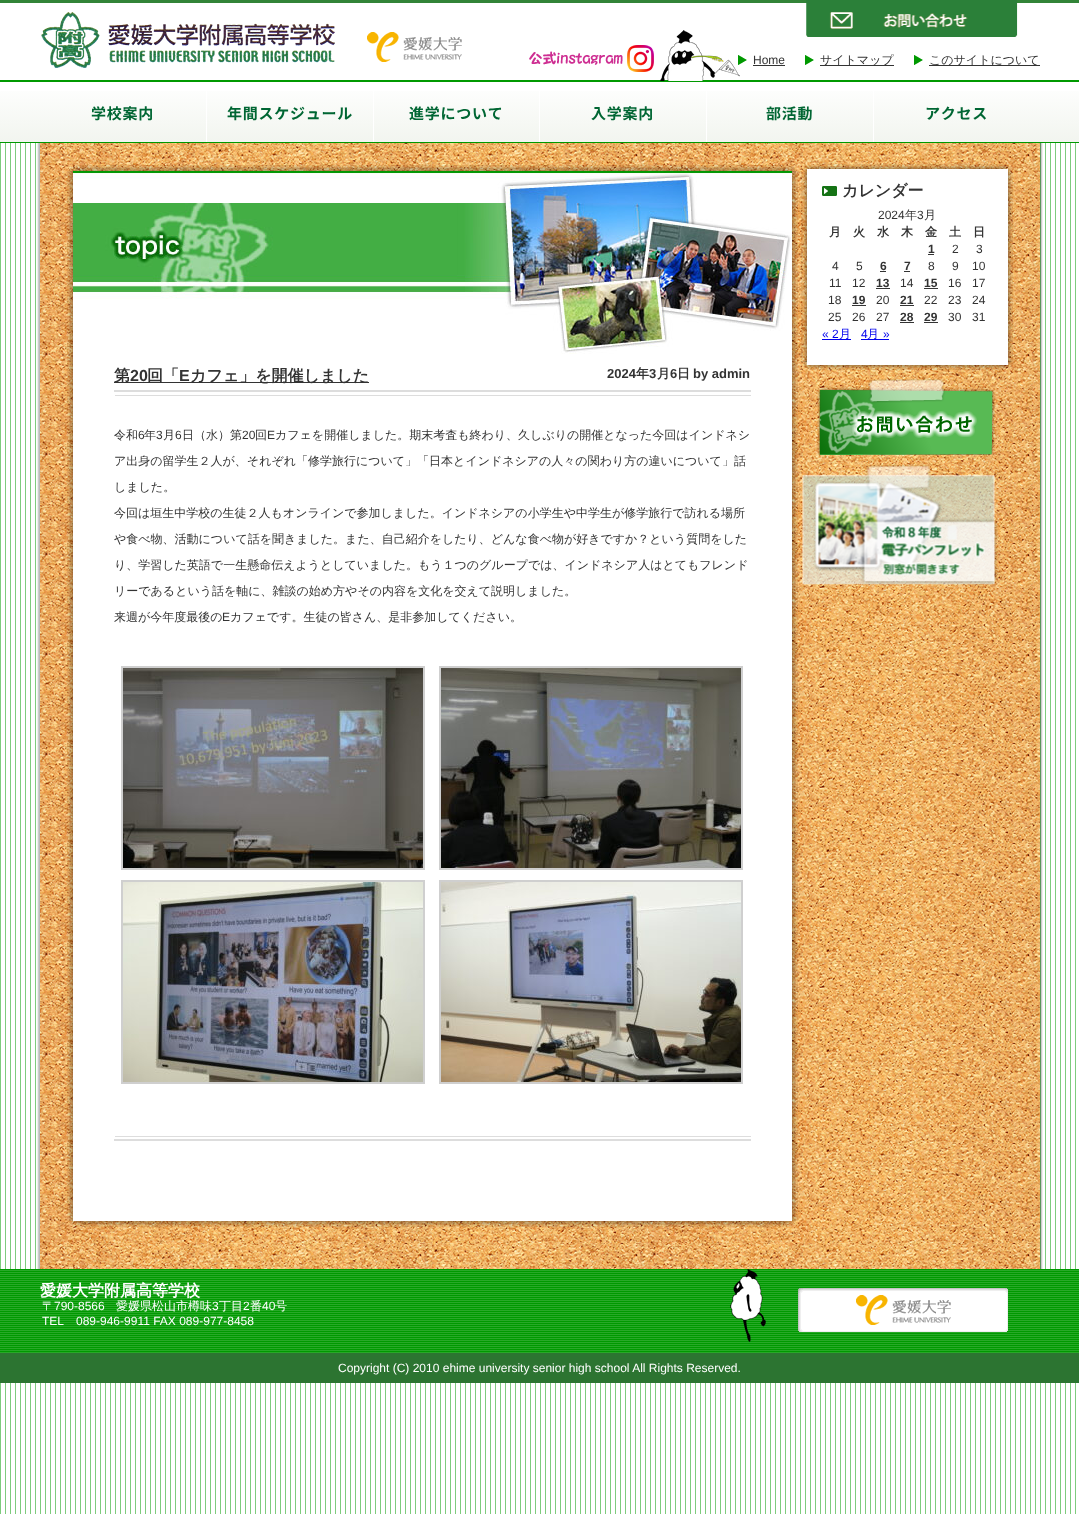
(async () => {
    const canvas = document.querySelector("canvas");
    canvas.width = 1079;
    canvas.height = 1514;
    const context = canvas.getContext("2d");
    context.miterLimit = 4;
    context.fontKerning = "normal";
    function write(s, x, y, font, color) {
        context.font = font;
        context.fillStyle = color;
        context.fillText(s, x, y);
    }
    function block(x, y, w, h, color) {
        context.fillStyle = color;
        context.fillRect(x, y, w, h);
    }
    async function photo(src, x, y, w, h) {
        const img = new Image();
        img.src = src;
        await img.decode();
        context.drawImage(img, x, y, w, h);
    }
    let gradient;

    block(0, 0, 1079, 1514, "rgb(255, 255, 255)");
    await photo("media/1.png", 0, 143, 1076, 1371);
    await photo("media/2.png", 0, 0, 1079, 81);
    await photo("media/3.png", 41, 12, 294, 56);
    await photo("media/4.png", 367, 32, 95, 30);
    await photo("media/5.png", 529, 45, 125, 27);
    await photo("media/6.png", 660, 30, 80, 51);
    await photo("media/7.png", 806, 0, 212, 37);
    await photo("media/8.png", 738, 55, 9, 10);
    write("Home", 753, 64, "12px Liberation Sans", "rgb(51, 51, 51)");
    block(753, 65, 32, 1, "rgb(51, 51, 51)");
    await photo("media/8.png", 805, 55, 9, 10);
    block(820, 65, 74, 1, "rgb(51, 51, 51)");
    write("サイトマップ", 820, 64, "500 12px WenQuanYi Zen Hei", "rgb(51, 51, 51)");
    await photo("media/8.png", 914, 55, 9, 10);
    block(929, 65, 111, 1, "rgb(51, 51, 51)");
    write("このサイトについて", 929, 64, "500 12px WenQuanYi Zen Hei", "rgb(51, 51, 51)");
    gradient = context.createLinearGradient(540, 82, 540, 142);
    gradient.addColorStop(0, "rgb(255, 255, 255)");
    gradient.addColorStop(1, "rgb(242, 245, 239)");
    context.fillStyle = gradient;
    context.fillRect(0, 91, 1079, 51);
    block(0, 81, 1079, 1, "rgb(0, 153, 0)");
    block(0, 142, 1079, 1, "rgb(0, 153, 0)");
    context.letterSpacing = "0.75px";
    write("学校案内", 91, 119, "bold 15px Noto Sans JP", "rgb(0, 102, 51)");
    block(206, 91, 1, 51, "rgb(255, 255, 255)");
    write("年間スケジュール", 227, 119, "bold 15px Noto Sans JP", "rgb(0, 102, 51)");
    block(373, 91, 1, 51, "rgb(255, 255, 255)");
    write("進学について", 409, 119, "bold 15px Noto Sans JP", "rgb(0, 102, 51)");
    block(539, 91, 1, 51, "rgb(255, 255, 255)");
    write("入学案内", 591, 119, "bold 15px Noto Sans JP", "rgb(0, 102, 51)");
    block(706, 91, 1, 51, "rgb(255, 255, 255)");
    write("部活動", 766, 119, "bold 15px Noto Sans JP", "rgb(0, 102, 51)");
    block(873, 91, 1, 51, "rgb(255, 255, 255)");
    write("アクセス", 925, 119, "bold 15px Noto Sans JP", "rgb(0, 102, 51)");
    await photo("media/9.png", 37, 143, 1006, 1126);
    await photo("media/10.png", 802, 164, 210, 9);
    await photo("media/11.png", 801, 361, 211, 9);
    await photo("media/12.png", 801, 173, 212, 189);
    await photo("media/13.png", 822, 186, 15, 10);
    context.letterSpacing = "0px";
    write("カレンダー", 842, 196, "bold 16px WenQuanYi Zen Hei", "rgb(51, 51, 51)");
    write("2024", 878, 219, "12px Liberation Sans", "rgb(51, 51, 51)");
    write("年", 905, 219, "500 12px WenQuanYi Zen Hei", "rgb(51, 51, 51)");
    write("3", 917, 219, "12px Liberation Sans", "rgb(51, 51, 51)");
    write("月", 924, 219, "500 12px WenQuanYi Zen Hei", "rgb(51, 51, 51)");
    write("月", 829, 236, "bold 12px WenQuanYi Zen Hei", "rgb(51, 51, 51)");
    write("火", 853, 236, "bold 12px WenQuanYi Zen Hei", "rgb(51, 51, 51)");
    write("水", 877, 236, "bold 12px WenQuanYi Zen Hei", "rgb(51, 51, 51)");
    write("木", 901, 236, "bold 12px WenQuanYi Zen Hei", "rgb(51, 51, 51)");
    write("金", 925, 236, "bold 12px WenQuanYi Zen Hei", "rgb(51, 51, 51)");
    write("土", 949, 236, "bold 12px WenQuanYi Zen Hei", "rgb(51, 51, 51)");
    write("日", 973, 236, "bold 12px WenQuanYi Zen Hei", "rgb(51, 51, 51)");
    write("1", 928, 253, "bold 12px Liberation Sans", "rgb(51, 51, 51)");
    block(928, 254, 6, 1, "rgb(51, 51, 51)");
    write("2", 952, 253, "12px Liberation Sans", "rgb(51, 51, 51)");
    write("3", 976, 253, "12px Liberation Sans", "rgb(51, 51, 51)");
    write("4", 832, 270, "12px Liberation Sans", "rgb(51, 51, 51)");
    write("5", 856, 270, "12px Liberation Sans", "rgb(51, 51, 51)");
    write("6", 880, 270, "bold 12px Liberation Sans", "rgb(51, 51, 51)");
    block(880, 271, 6, 1, "rgb(51, 51, 51)");
    write("7", 904, 270, "bold 12px Liberation Sans", "rgb(51, 51, 51)");
    block(904, 271, 6, 1, "rgb(51, 51, 51)");
    write("8", 928, 270, "12px Liberation Sans", "rgb(51, 51, 51)");
    write("9", 952, 270, "12px Liberation Sans", "rgb(51, 51, 51)");
    write("10", 972, 270, "12px Liberation Sans", "rgb(51, 51, 51)");
    write("11", 829, 287, "12px Liberation Sans", "rgb(51, 51, 51)");
    write("12", 852, 287, "12px Liberation Sans", "rgb(51, 51, 51)");
    write("13", 876, 287, "bold 12px Liberation Sans", "rgb(51, 51, 51)");
    block(876, 288, 14, 1, "rgb(51, 51, 51)");
    write("14", 900, 287, "12px Liberation Sans", "rgb(51, 51, 51)");
    write("15", 924, 287, "bold 12px Liberation Sans", "rgb(51, 51, 51)");
    block(924, 288, 14, 1, "rgb(51, 51, 51)");
    write("16", 948, 287, "12px Liberation Sans", "rgb(51, 51, 51)");
    write("17", 972, 287, "12px Liberation Sans", "rgb(51, 51, 51)");
    write("18", 828, 304, "12px Liberation Sans", "rgb(51, 51, 51)");
    write("19", 852, 304, "bold 12px Liberation Sans", "rgb(51, 51, 51)");
    block(852, 305, 14, 1, "rgb(51, 51, 51)");
    write("20", 876, 304, "12px Liberation Sans", "rgb(51, 51, 51)");
    write("21", 900, 304, "bold 12px Liberation Sans", "rgb(51, 51, 51)");
    block(900, 305, 14, 1, "rgb(51, 51, 51)");
    write("22", 924, 304, "12px Liberation Sans", "rgb(51, 51, 51)");
    write("23", 948, 304, "12px Liberation Sans", "rgb(51, 51, 51)");
    write("24", 972, 304, "12px Liberation Sans", "rgb(51, 51, 51)");
    write("25", 828, 321, "12px Liberation Sans", "rgb(51, 51, 51)");
    write("26", 852, 321, "12px Liberation Sans", "rgb(51, 51, 51)");
    write("27", 876, 321, "12px Liberation Sans", "rgb(51, 51, 51)");
    write("28", 900, 321, "bold 12px Liberation Sans", "rgb(51, 51, 51)");
    block(900, 322, 14, 1, "rgb(51, 51, 51)");
    write("29", 924, 321, "bold 12px Liberation Sans", "rgb(51, 51, 51)");
    block(924, 322, 14, 1, "rgb(51, 51, 51)");
    write("30", 948, 321, "12px Liberation Sans", "rgb(51, 51, 51)");
    write("31", 972, 321, "12px Liberation Sans", "rgb(51, 51, 51)");
    write("« 2", 822, 338, "12px Liberation Sans", "rgb(0, 0, 238)");
    block(822, 339, 29, 1, "rgb(0, 0, 238)");
    write("月", 839, 338, "500 12px WenQuanYi Zen Hei", "rgb(0, 0, 238)");
    write("4", 861, 338, "12px Liberation Sans", "rgb(0, 0, 238)");
    block(861, 339, 28, 1, "rgb(0, 0, 238)");
    write("月", 867, 338, "500 12px WenQuanYi Zen Hei", "rgb(0, 0, 238)");
    write("»", 883, 338, "12px Liberation Sans", "rgb(0, 0, 238)");
    await photo("media/14.png", 817, 379, 178, 76);
    await photo("media/15.png", 802, 464, 196, 121);
    await photo("media/16.png", 69, 165, 727, 6);
    await photo("media/17.png", 69, 1221, 727, 6);
    await photo("media/18.png", 67, 171, 731, 1050);
    await photo("media/19.png", 73, 171, 719, 183);
    await photo("media/20.png", 114, 390, 637, 6);
    block(114, 382, 255, 1, "rgb(51, 51, 51)");
    write("第", 114, 381, "bold 16px WenQuanYi Zen Hei", "rgb(51, 51, 51)");
    write("20", 130, 381, "bold 16px Liberation Sans", "rgb(51, 51, 51)");
    write("回「", 147, 381, "bold 16px WenQuanYi Zen Hei", "rgb(51, 51, 51)");
    write("E", 179, 381, "bold 16px Liberation Sans", "rgb(51, 51, 51)");
    write("カフェ」を開催しました", 190, 381, "bold 16px WenQuanYi Zen Hei", "rgb(51, 51, 51)");
    write("2024", 607, 378, "bold 13px Liberation Sans", "rgb(51, 51, 51)");
    write("年", 636, 378, "bold 13px WenQuanYi Zen Hei", "rgb(51, 51, 51)");
    write("3", 649, 378, "bold 13px Liberation Sans", "rgb(51, 51, 51)");
    write("月", 657, 378, "bold 13px WenQuanYi Zen Hei", "rgb(51, 51, 51)");
    write("6", 670, 378, "bold 13px Liberation Sans", "rgb(51, 51, 51)");
    write("日", 677, 378, "bold 13px WenQuanYi Zen Hei", "rgb(51, 51, 51)");
    write("by admin", 693, 378, "bold 13px Liberation Sans", "rgb(51, 51, 51)");
    await photo("media/21.png", 114, 1136, 637, 5);
    write("令和", 114, 439, "500 12px WenQuanYi Zen Hei", "rgb(51, 51, 51)");
    write("6", 138, 439, "12px Liberation Sans", "rgb(51, 51, 51)");
    write("年", 144, 439, "500 12px WenQuanYi Zen Hei", "rgb(51, 51, 51)");
    write("3", 156, 439, "12px Liberation Sans", "rgb(51, 51, 51)");
    write("月", 163, 439, "500 12px WenQuanYi Zen Hei", "rgb(51, 51, 51)");
    write("6", 175, 439, "12px Liberation Sans", "rgb(51, 51, 51)");
    write("日（水）第", 182, 439, "500 12px WenQuanYi Zen Hei", "rgb(51, 51, 51)");
    write("20", 242, 439, "12px Liberation Sans", "rgb(51, 51, 51)");
    write("回", 255, 439, "500 12px WenQuanYi Zen Hei", "rgb(51, 51, 51)");
    write("E", 267, 439, "12px Liberation Sans", "rgb(51, 51, 51)");
    write("カフェを開催しました。期末考査も終わり、久しぶりの開催となった今回はインドネシ", 275, 439, "500 12px WenQuanYi Zen Hei", "rgb(51, 51, 51)");
    write("ア出身の留学生２人が、それぞれ「修学旅行について」「日本とインドネシアの人々の関わり方の違いについて」話", 114, 465, "500 12px WenQuanYi Zen Hei", "rgb(51, 51, 51)");
    write("しました。", 114, 491, "500 12px WenQuanYi Zen Hei", "rgb(51, 51, 51)");
    write("今回は垣生中学校の生徒２人もオンラインで参加しました。インドネシアの小学生や中学生が修学旅行で訪れる場所", 114, 517, "500 12px WenQuanYi Zen Hei", "rgb(51, 51, 51)");
    write("や食べ物、活動について話を聞きました。また、自己紹介をしたり、どんな食べ物が好きですか？という質問をした", 114, 543, "500 12px WenQuanYi Zen Hei", "rgb(51, 51, 51)");
    write("り、学習した英語で一生懸命伝えようとしていました。もう１つのグループでは、インドネシア人はとてもフレンド", 114, 569, "500 12px WenQuanYi Zen Hei", "rgb(51, 51, 51)");
    write("リーであるという話を軸に、雑談の始め方やその内容を文化を交えて説明しました。", 114, 595, "500 12px WenQuanYi Zen Hei", "rgb(51, 51, 51)");
    write("来週が今年度最後の", 114, 621, "500 12px WenQuanYi Zen Hei", "rgb(51, 51, 51)");
    write("E", 222, 621, "12px Liberation Sans", "rgb(51, 51, 51)");
    write("カフェです。生徒の皆さん、是非参加してください。", 230, 621, "500 12px WenQuanYi Zen Hei", "rgb(51, 51, 51)");
    context.strokeStyle = "rgb(207, 207, 207)";
    context.lineWidth = 2;
    context.strokeRect(122, 667, 302, 202);
    await photo("media/22.png", 123, 668, 300, 200);
    context.strokeRect(440, 667, 302, 202);
    await photo("media/23.png", 441, 668, 300, 200);
    context.strokeRect(122, 881, 302, 202);
    await photo("media/24.png", 123, 882, 300, 200);
    context.strokeRect(440, 881, 302, 202);
    await photo("media/25.png", 441, 882, 300, 200);
    await photo("media/26.png", 0, 1269, 1079, 114);
    write("愛媛大学附属高等学校", 40, 1296, "bold 16px WenQuanYi Zen Hei", "rgb(255, 255, 255)");
    await photo("media/27.png", 730, 1269, 36, 73);
    await photo("media/28.png", 798, 1288, 210, 44);
    write("〒", 42, 1310, "500 12px WenQuanYi Zen Hei", "rgb(255, 255, 255)");
    write("790-8566", 54, 1310, "12px Liberation Sans", "rgb(255, 255, 255)");
    write("愛媛県松山市樽味", 116, 1310, "500 12px WenQuanYi Zen Hei", "rgb(255, 255, 255)");
    write("3", 212, 1310, "12px Liberation Sans", "rgb(255, 255, 255)");
    write("丁目", 219, 1310, "500 12px WenQuanYi Zen Hei", "rgb(255, 255, 255)");
    write("2", 243, 1310, "12px Liberation Sans", "rgb(255, 255, 255)");
    write("番", 250, 1310, "500 12px WenQuanYi Zen Hei", "rgb(255, 255, 255)");
    write("40", 262, 1310, "12px Liberation Sans", "rgb(255, 255, 255)");
    write("号", 275, 1310, "500 12px WenQuanYi Zen Hei", "rgb(255, 255, 255)");
    write("TEL", 42, 1325, "12px Liberation Sans", "rgb(255, 255, 255)");
    write("089-946-9911 FAX 089-977-8458", 76, 1325, "12px Liberation Sans", "rgb(255, 255, 255)");
    write("Copyright (C) 2010 ehime university senior high school All Rights Reserved.", 338, 1372, "12px Liberation Sans", "rgb(255, 255, 255)");
})();
